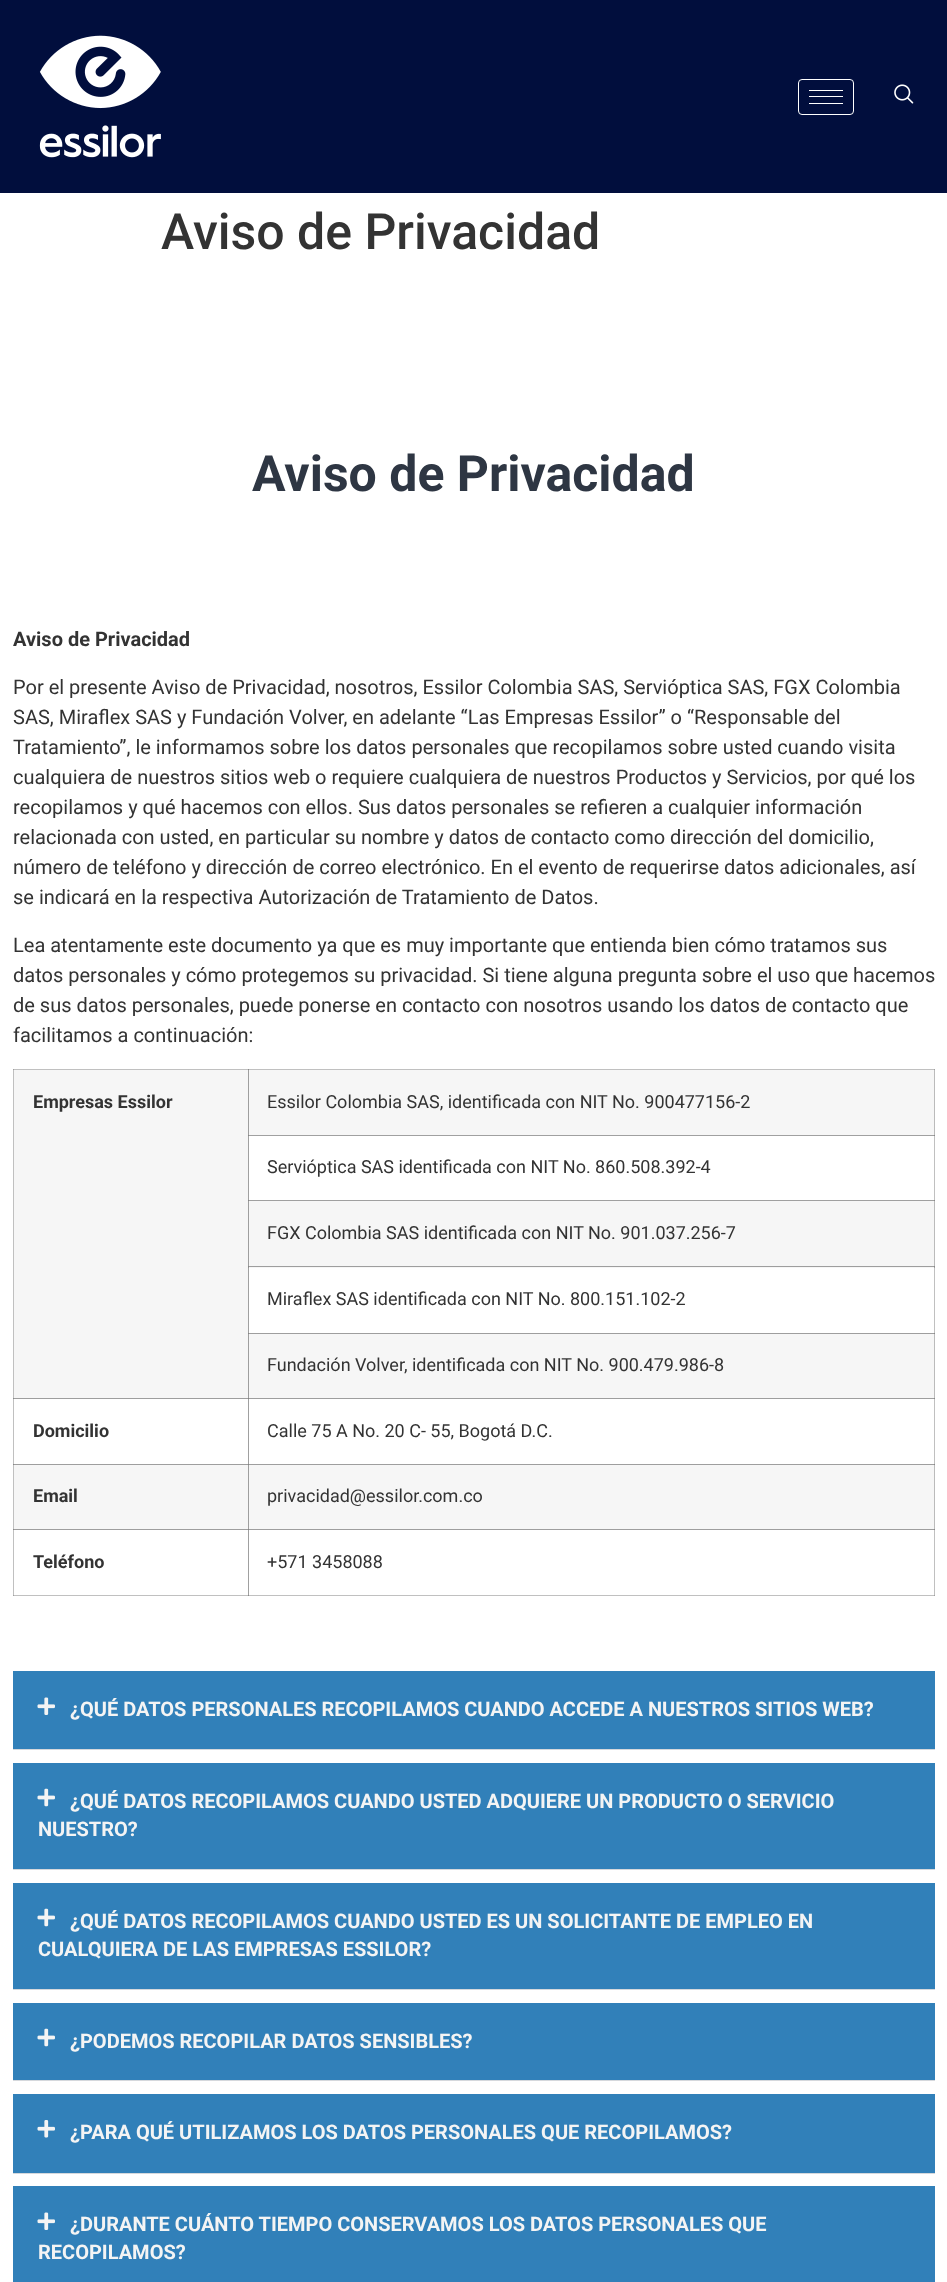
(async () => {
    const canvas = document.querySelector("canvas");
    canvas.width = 947;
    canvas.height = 2282;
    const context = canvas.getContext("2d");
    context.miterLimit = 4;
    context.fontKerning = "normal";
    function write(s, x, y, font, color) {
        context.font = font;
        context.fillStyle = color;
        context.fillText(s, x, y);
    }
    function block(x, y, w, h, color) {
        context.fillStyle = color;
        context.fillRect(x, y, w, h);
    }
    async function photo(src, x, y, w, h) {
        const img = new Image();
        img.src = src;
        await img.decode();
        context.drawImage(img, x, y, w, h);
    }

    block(0, 0, 947, 2282, "rgb(255, 255, 255)");
    block(13, 1069, 1, 527, "rgb(192, 192, 192)");
    block(13, 1069, 922, 1, "rgb(192, 192, 192)");
    block(13, 1069, 1, 1, "rgb(160, 160, 160)");
    block(248, 1135, 1, 66, "rgb(160, 160, 160)");
    block(934, 1135, 1, 66, "rgb(192, 192, 192)");
    block(248, 1266, 1, 68, "rgb(160, 160, 160)");
    block(934, 1266, 1, 68, "rgb(192, 192, 192)");
    block(13, 1398, 1, 1, "rgb(136, 136, 136)");
    block(248, 1398, 1, 67, "rgb(160, 160, 160)");
    block(934, 1398, 1, 67, "rgb(192, 192, 192)");
    block(13, 1464, 1, 1, "rgb(136, 136, 136)");
    block(13, 1595, 236, 1, "rgb(192, 192, 192)");
    block(13, 1595, 1, 1, "rgb(160, 160, 160)");
    block(13, 1529, 1, 1, "rgb(136, 136, 136)");
    block(248, 1529, 1, 67, "rgb(160, 160, 160)");
    block(248, 1595, 687, 1, "rgb(192, 192, 192)");
    block(248, 1595, 1, 1, "rgb(136, 136, 136)");
    block(934, 1529, 1, 67, "rgb(192, 192, 192)");
    block(934, 1595, 1, 1, "rgb(160, 160, 160)");
    block(0, 0, 947, 193, "rgb(1, 14, 61)");
    await photo("media/1.png", 39, 35, 122, 123);
    context.beginPath();
    context.roundRect(798.5, 79.5, 55, 35, 3.5);
    context.strokeStyle = "rgb(255, 255, 255)";
    context.stroke();
    block(809, 90, 34, 1, "rgb(255, 255, 255)");
    block(809, 96, 34, 1, "rgb(255, 255, 255)");
    block(809, 103, 34, 1, "rgb(255, 255, 255)");
    await photo("media/2.png", 894, 84, 20, 20);
    write("Aviso de Privacidad", 161, 249, "500 50px Roboto", "rgb(51, 51, 51)");
    write("Aviso de Privacidad", 252, 491, "bold 50px Roboto", "rgb(46, 54, 67)");
    write("Aviso de Privacidad", 13, 646, "bold 20px Roboto", "rgb(51, 51, 51)");
    write("Por el presente Aviso de Privacidad, nosotros, Essilor Colombia SAS, Servióptica SAS, FGX Colombia", 13, 694, "20px Roboto", "rgb(51, 51, 51)");
    write("SAS, Miraflex SAS y Fundación Volver, en adelante “Las Empresas Essilor” o “Responsable del", 13, 724, "20px Roboto", "rgb(51, 51, 51)");
    write("Tratamiento”, le informamos sobre los datos personales que recopilamos sobre usted cuando visita", 13, 754, "20px Roboto", "rgb(51, 51, 51)");
    write("cualquiera de nuestros sitios web o requiere cualquiera de nuestros Productos y Servicios, por qué los", 13, 784, "20px Roboto", "rgb(51, 51, 51)");
    write("recopilamos y qué hacemos con ellos. Sus datos personales se refieren a cualquier información", 13, 814, "20px Roboto", "rgb(51, 51, 51)");
    write("relacionada con usted, en particular su nombre y datos de contacto como dirección del domicilio,", 13, 844, "20px Roboto", "rgb(51, 51, 51)");
    write("número de teléfono y dirección de correo electrónico. En el evento de requerirse datos adicionales, así", 13, 874, "20px Roboto", "rgb(51, 51, 51)");
    write("se indicará en la respectiva Autorización de Tratamiento de Datos.", 13, 904, "20px Roboto", "rgb(51, 51, 51)");
    write("Lea atentamente este documento ya que es muy importante que entienda bien cómo tratamos sus", 13, 952, "20px Roboto", "rgb(51, 51, 51)");
    write("datos personales y cómo protegemos su privacidad. Si tiene alguna pregunta sobre el uso que hacemos", 13, 982, "20px Roboto", "rgb(51, 51, 51)");
    write("de sus datos personales, puede ponerse en contacto con nosotros usando los datos de contacto que", 13, 1012, "20px Roboto", "rgb(51, 51, 51)");
    write("facilitamos a continuación:", 13, 1042, "20px Roboto", "rgb(51, 51, 51)");
    block(14, 1070, 234, 328, "rgb(246, 246, 246)");
    block(14, 1398, 234, 1, "rgb(158, 158, 158)");
    write("Empresas Essilor", 33, 1108, "bold 18px Roboto", "rgb(51, 51, 51)");
    block(249, 1070, 685, 65, "rgb(246, 246, 246)");
    block(248, 1070, 1, 65, "rgb(158, 158, 158)");
    block(934, 1070, 1, 65, "rgb(187, 187, 187)");
    block(248, 1069, 1, 1, "rgb(136, 136, 136)");
    block(934, 1069, 1, 1, "rgb(160, 160, 160)");
    write("Essilor Colombia SAS, identificada con NIT No. 900477156-2", 267, 1108, "18px Roboto", "rgb(51, 51, 51)");
    block(248, 1135, 687, 1, "rgb(160, 160, 160)");
    block(248, 1135, 1, 1, "rgb(132, 132, 132)");
    block(934, 1135, 1, 1, "rgb(136, 136, 136)");
    write("Servióptica SAS identificada con NIT No. 860.508.392-4", 267, 1173, "18px Roboto", "rgb(51, 51, 51)");
    block(249, 1201, 685, 67, "rgb(246, 246, 246)");
    block(248, 1201, 1, 67, "rgb(158, 158, 158)");
    block(934, 1201, 1, 67, "rgb(187, 187, 187)");
    block(248, 1266, 1, 2, "rgb(143, 143, 143)");
    block(934, 1266, 1, 2, "rgb(158, 158, 158)");
    block(248, 1200, 687, 1, "rgb(160, 160, 160)");
    block(248, 1200, 1, 1, "rgb(132, 132, 132)");
    block(934, 1200, 1, 1, "rgb(136, 136, 136)");
    write("FGX Colombia SAS identificada con NIT No. 901.037.256-7", 267, 1239, "18px Roboto", "rgb(51, 51, 51)");
    block(248, 1266, 687, 1, "rgb(158, 158, 158)");
    block(248, 1266, 1, 1, "rgb(132, 132, 132)");
    block(934, 1266, 1, 1, "rgb(136, 136, 136)");
    write("Miraflex SAS identificada con NIT No. 800.151.102-2", 267, 1305, "18px Roboto", "rgb(51, 51, 51)");
    block(249, 1334, 685, 64, "rgb(246, 246, 246)");
    block(248, 1333, 1, 66, "rgb(158, 158, 158)");
    block(934, 1333, 1, 66, "rgb(187, 187, 187)");
    block(248, 1333, 687, 1, "rgb(158, 158, 158)");
    block(248, 1333, 1, 1, "rgb(132, 132, 132)");
    block(934, 1333, 1, 1, "rgb(136, 136, 136)");
    write("Fundación Volver, identificada con NIT No. 900.479.986-8", 267, 1371, "18px Roboto", "rgb(51, 51, 51)");
    write("Domicilio", 33, 1437, "bold 18px Roboto", "rgb(51, 51, 51)");
    block(248, 1398, 687, 1, "rgb(158, 158, 158)");
    block(248, 1398, 1, 1, "rgb(129, 129, 129)");
    block(934, 1398, 1, 1, "rgb(136, 136, 136)");
    write("Calle 75 A No. 20 C- 55, Bogotá D.C.", 267, 1437, "18px Roboto", "rgb(51, 51, 51)");
    block(14, 1465, 234, 64, "rgb(246, 246, 246)");
    block(14, 1464, 234, 1, "rgb(158, 158, 158)");
    block(14, 1529, 234, 1, "rgb(158, 158, 158)");
    write("Email", 33, 1502, "bold 18px Roboto", "rgb(51, 51, 51)");
    block(249, 1465, 685, 64, "rgb(246, 246, 246)");
    block(248, 1464, 1, 66, "rgb(158, 158, 158)");
    block(934, 1464, 1, 66, "rgb(187, 187, 187)");
    block(248, 1464, 687, 1, "rgb(158, 158, 158)");
    block(248, 1464, 1, 1, "rgb(129, 129, 129)");
    block(934, 1464, 1, 1, "rgb(136, 136, 136)");
    write("privacidad@essilor.com.co", 267, 1502, "18px Roboto", "rgb(51, 51, 51)");
    write("Teléfono", 33, 1568, "bold 18px Roboto", "rgb(51, 51, 51)");
    block(248, 1529, 687, 1, "rgb(158, 158, 158)");
    block(248, 1529, 1, 1, "rgb(129, 129, 129)");
    block(934, 1529, 1, 1, "rgb(136, 136, 136)");
    write("+571 3458088", 267, 1568, "18px Roboto", "rgb(51, 51, 51)");
    block(13, 1671, 922, 78, "rgb(49, 128, 185)");
    block(13, 1749, 922, 1, "rgb(213, 216, 220)");
    await photo("media/3.png", 37, 1697, 18, 18);
    write("¿QUÉ DATOS PERSONALES RECOPILAMOS CUANDO ACCEDE A NUESTROS SITIOS WEB?", 70, 1716, "bold 20px Roboto", "rgb(244, 244, 244)");
    block(13, 1763, 922, 106, "rgb(49, 128, 185)");
    block(13, 1869, 922, 1, "rgb(213, 216, 220)");
    await photo("media/4.png", 37, 1788, 18, 19);
    write("¿QUÉ DATOS RECOPILAMOS CUANDO USTED ADQUIERE UN PRODUCTO O SERVICIO", 70, 1808, "bold 20px Roboto", "rgb(244, 244, 244)");
    write("NUESTRO?", 38, 1836, "bold 20px Roboto", "rgb(244, 244, 244)");
    block(13, 1883, 922, 106, "rgb(49, 128, 185)");
    block(13, 1989, 922, 1, "rgb(213, 216, 220)");
    await photo("media/4.png", 37, 1908, 18, 19);
    write("¿QUÉ DATOS RECOPILAMOS CUANDO USTED ES UN SOLICITANTE DE EMPLEO EN", 70, 1928, "bold 20px Roboto", "rgb(244, 244, 244)");
    write("CUALQUIERA DE LAS EMPRESAS ESSILOR?", 38, 1956, "bold 20px Roboto", "rgb(244, 244, 244)");
    block(13, 2003, 922, 77, "rgb(49, 128, 185)");
    block(13, 2080, 922, 1, "rgb(213, 216, 220)");
    await photo("media/4.png", 37, 2028, 18, 19);
    write("¿PODEMOS RECOPILAR DATOS SENSIBLES?", 70, 2048, "bold 20px Roboto", "rgb(244, 244, 244)");
    block(13, 2094, 922, 79, "rgb(49, 128, 185)");
    block(13, 2173, 922, 1, "rgb(213, 216, 220)");
    await photo("media/5.png", 37, 2120, 18, 18);
    write("¿PARA QUÉ UTILIZAMOS LOS DATOS PERSONALES QUE RECOPILAMOS?", 70, 2139, "bold 20px Roboto", "rgb(244, 244, 244)");
    block(13, 2186, 922, 96, "rgb(49, 128, 185)");
    await photo("media/3.png", 37, 2212, 18, 18);
    write("¿DURANTE CUÁNTO TIEMPO CONSERVAMOS LOS DATOS PERSONALES QUE", 70, 2231, "bold 20px Roboto", "rgb(244, 244, 244)");
    write("RECOPILAMOS?", 38, 2259, "bold 20px Roboto", "rgb(244, 244, 244)");
})();
